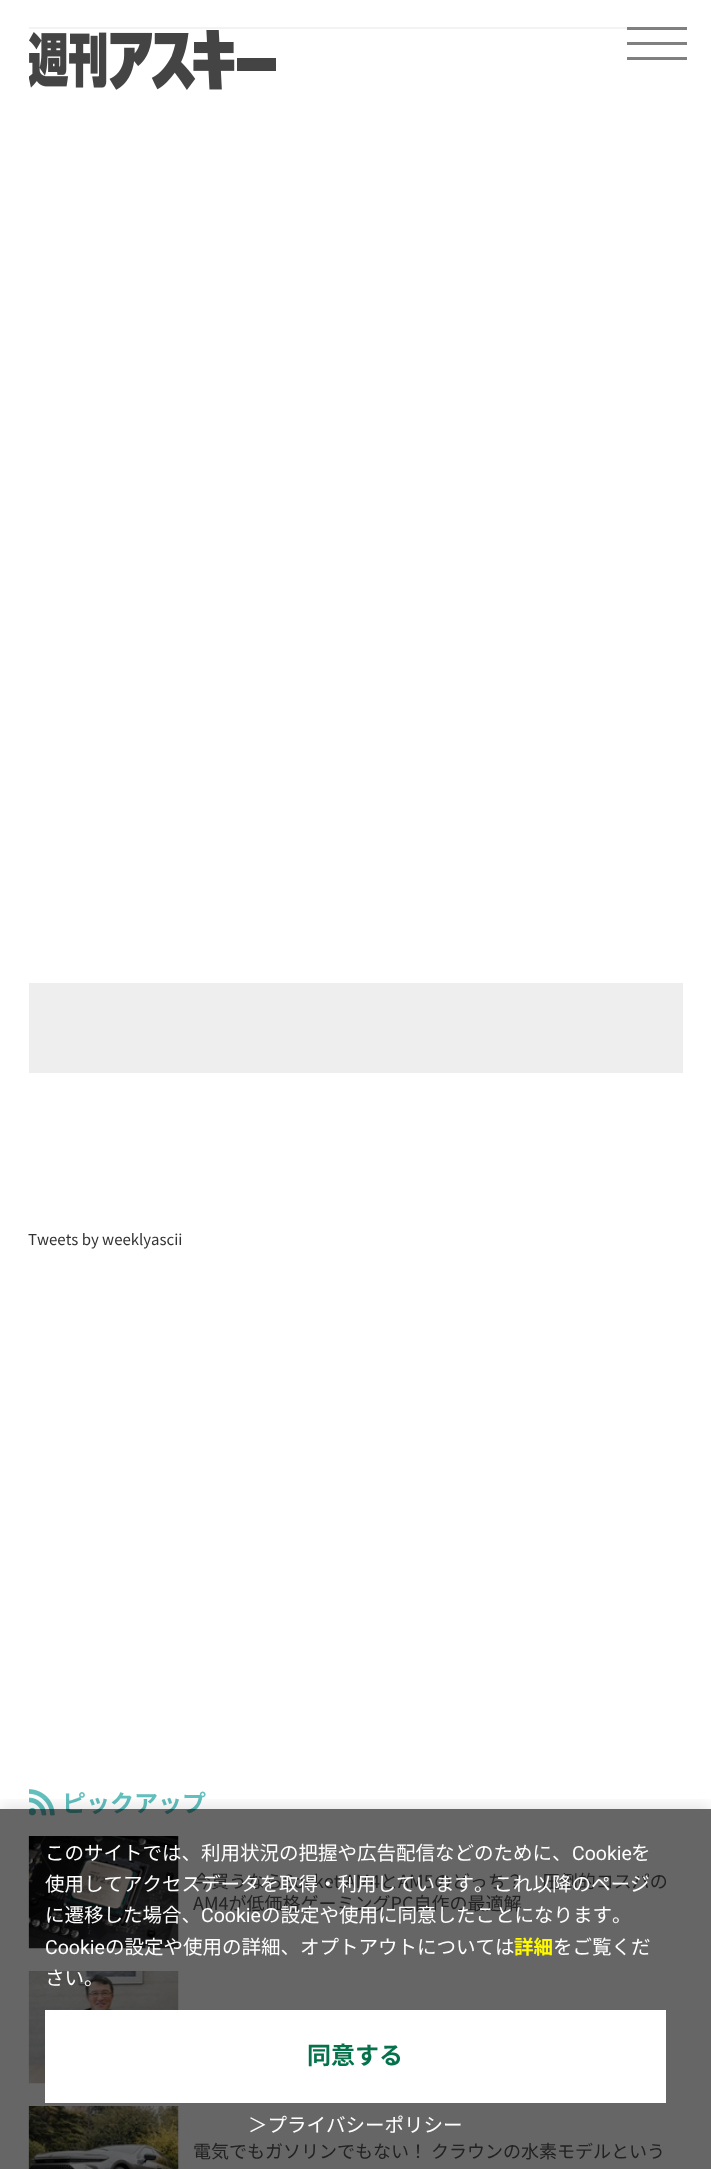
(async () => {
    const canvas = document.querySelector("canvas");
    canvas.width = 711;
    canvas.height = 2169;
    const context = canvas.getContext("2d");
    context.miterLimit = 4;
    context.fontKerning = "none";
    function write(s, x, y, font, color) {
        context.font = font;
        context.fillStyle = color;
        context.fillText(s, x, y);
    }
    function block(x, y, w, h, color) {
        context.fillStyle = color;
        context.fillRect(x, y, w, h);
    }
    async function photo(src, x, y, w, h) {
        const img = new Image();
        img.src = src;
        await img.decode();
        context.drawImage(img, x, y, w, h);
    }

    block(0, 0, 711, 2169, "rgb(255, 255, 255)");
    await photo("media/1.png", 29, 30, 247, 60);
    block(627, 42, 60, 3, "rgb(128, 128, 128)");
    block(29, 27, 604, 2, "rgb(243, 243, 243)");
    block(627, 27, 60, 3, "rgb(128, 128, 128)");
    block(627, 57, 60, 3, "rgb(128, 128, 128)");
    block(29, 983, 654, 90, "rgb(238, 238, 238)");
    write("Tweets by weeklyascii", 28, 1245, "100 15px Noto Sans JP", "rgb(51, 51, 51)");
    await photo("media/2.png", 29, 1789, 26, 27);
    write("ピックアップ", 62, 1812, "bold 24px Noto Sans JP", "rgb(97, 191, 190)");
    await photo("media/3.png", 28, 1836, 151, 113);
    write("今買うならSocket AM4とAM5のどっち？　圧倒的コスパの", 193, 1888, "100 18px Noto Sans JP", "rgb(85, 85, 85)");
    write("AM4が低価格ゲーミングPC自作の最適解", 193, 1910, "100 18px Noto Sans JP", "rgb(85, 85, 85)");
    await photo("media/4.png", 28, 1971, 151, 113);
    await photo("media/5.png", 28, 2106, 151, 63);
    write("電気でもガソリンでもない！ クラウンの水素モデルという", 193, 2158, "100 18px Noto Sans JP", "rgb(85, 85, 85)");
    context.save();
    context.beginPath();
    context.rect(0, 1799, 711, 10);
    context.clip();
    context.fillStyle = "rgba(0, 0, 0, 0.1)";
    context.filter = "blur(7.5px)";
    context.beginPath();
    context.rect(0, 1805, 711, 360);
    context.fill();
    context.filter = "none";
    context.restore();
    block(0, 1809, 711, 360, "rgba(0, 0, 0, 0.6)");
    write("このサイトでは、利用状況の把握や広告配信などのために、", 45, 1860, "100 19.5px Noto Sans JP", "rgb(255, 255, 255)");
    write("Cookie", 572, 1860, "19.5px Roboto", "rgb(255, 255, 255)");
    write("を", 631, 1860, "100 19.5px Noto Sans JP", "rgb(255, 255, 255)");
    write("使用してアクセスデータを取得・利用しています", 45, 1891, "100 19.5px Noto Sans JP", "rgb(255, 255, 255)");
    write("。これ以降のページ", 474, 1891, "100 19.5px Noto Sans JP", "rgb(255, 255, 255)");
    write("に遷移した場合、", 45, 1922, "100 19.5px Noto Sans JP", "rgb(255, 255, 255)");
    write("Cookie", 201, 1922, "19.5px Roboto", "rgb(255, 255, 255)");
    write("の設定や使用に同意したことになります。", 261, 1922, "100 19.5px Noto Sans JP", "rgb(255, 255, 255)");
    write("Cookie", 45, 1954, "19.5px Roboto", "rgb(255, 255, 255)");
    write("の設定や使用の詳細、オプトアウトについては", 105, 1954, "100 19.5px Noto Sans JP", "rgb(255, 255, 255)");
    write("詳細", 514, 1954, "bold 19.5px Noto Sans JP", "rgb(255, 250, 0)");
    write("をご覧くだ", 553, 1954, "100 19.5px Noto Sans JP", "rgb(255, 255, 255)");
    write("さい。", 45, 1985, "100 19.5px Noto Sans JP", "rgb(255, 255, 255)");
    block(45, 2010, 621, 93, "rgb(255, 255, 255)");
    write("同意する", 307, 2064, "bold 24px Noto Sans JP", "rgb(5, 114, 75)");
    write("＞プライバシーポリシー", 248, 2132, "100 19.5px Noto Sans JP", "rgb(255, 255, 255)");
})();
